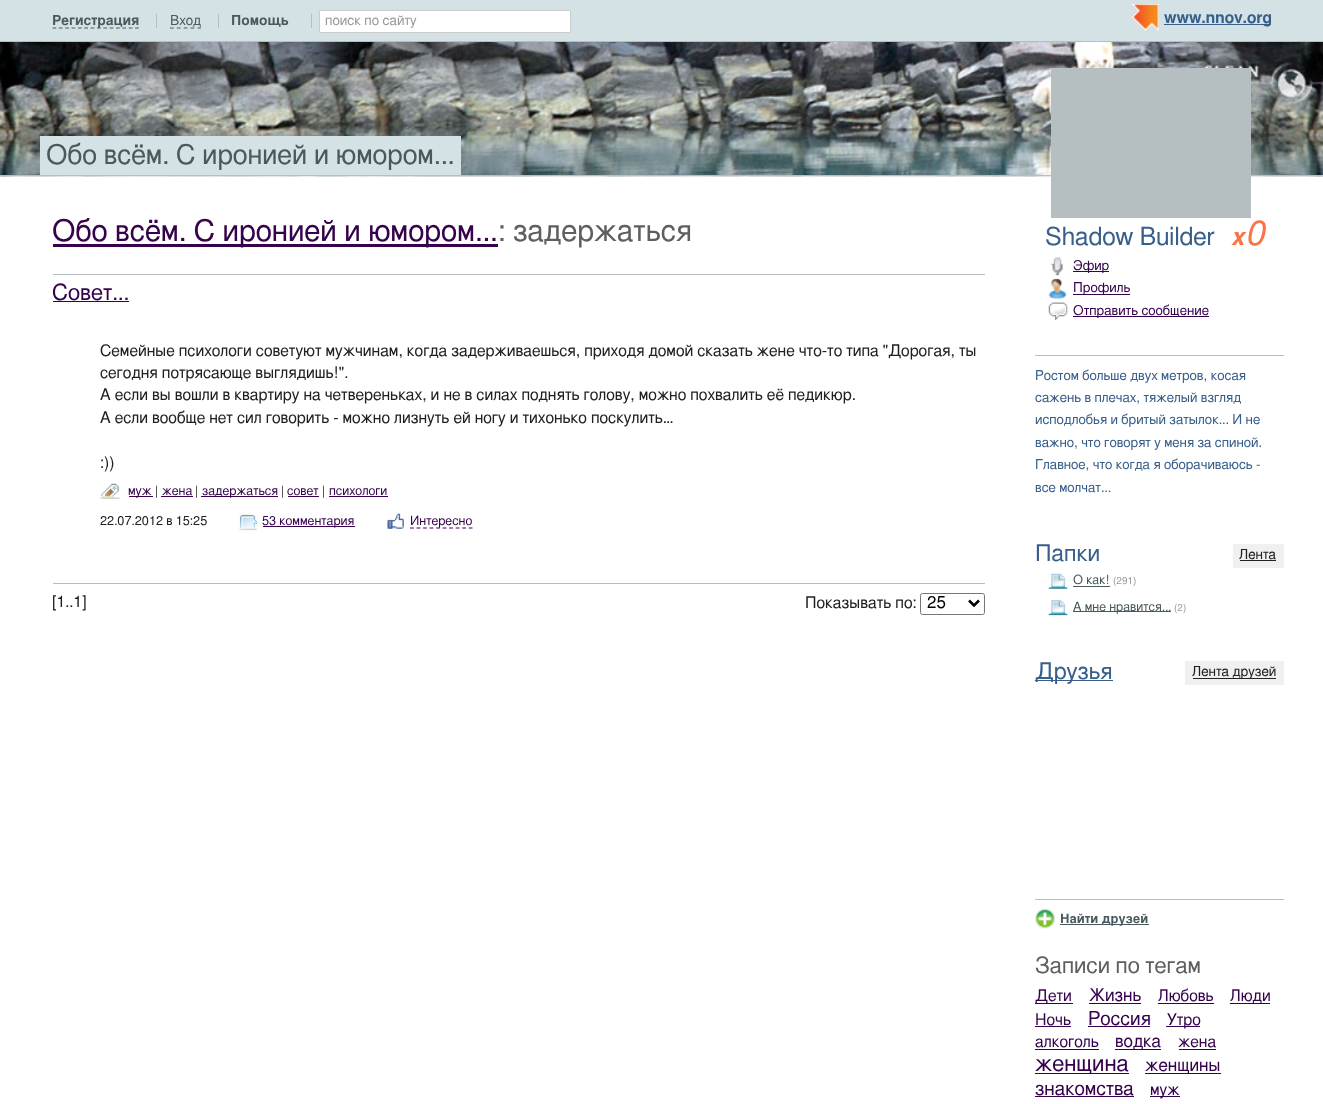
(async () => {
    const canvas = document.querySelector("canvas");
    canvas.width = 1323;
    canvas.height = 1104;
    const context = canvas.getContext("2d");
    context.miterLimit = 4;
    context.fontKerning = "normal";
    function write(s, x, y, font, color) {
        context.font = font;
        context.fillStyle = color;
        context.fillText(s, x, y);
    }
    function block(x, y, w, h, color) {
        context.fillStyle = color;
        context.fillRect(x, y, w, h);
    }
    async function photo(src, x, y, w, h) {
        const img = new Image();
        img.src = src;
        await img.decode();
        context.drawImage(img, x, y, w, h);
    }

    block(0, 0, 1323, 1104, "rgb(255, 255, 255)");
    await photo("media/1.png", 0, 42, 1323, 135);
    block(0, 175, 1323, 1, "rgb(181, 190, 193)");
    await photo("media/2.png", 272, 42, 1051, 133);
    block(0, 0, 1323, 41, "rgb(212, 226, 230)");
    block(0, 41, 1323, 1, "rgb(181, 190, 193)");
    context.beginPath();
    context.moveTo(52.5, 28);
    context.lineTo(139, 28);
    context.strokeStyle = "rgb(73, 89, 94)";
    context.lineWidth = 1.2;
    context.setLineDash([3.75, 2.6]);
    context.stroke();
    write("Регистрация", 52, 25, "600 13.75px FreeSans", "rgb(73, 89, 94)");
    write("Вход", 170, 25, "13.75px FreeSans", "rgb(73, 89, 94)");
    block(156, 14, 1, 14, "rgb(181, 190, 193)");
    context.beginPath();
    context.moveTo(170, 28);
    context.lineTo(201, 28);
    context.setLineDash([3.75, 3.12]);
    context.stroke();
    write("Помощь", 231, 25, "600 13.75px FreeSans", "rgb(73, 89, 94)");
    block(218, 14, 1, 14, "rgb(181, 190, 193)");
    block(311, 14, 1, 14, "rgb(181, 190, 193)");
    context.fillStyle = "rgb(255, 255, 255)";
    context.beginPath();
    context.rect(319.5, 10.5, 251, 22);
    context.fill();
    context.strokeStyle = "rgb(204, 204, 204)";
    context.lineWidth = 1;
    context.setLineDash([]);
    context.stroke();
    write("поиск по сайту", 325, 25, "13.75px FreeSans", "rgb(153, 153, 153)");
    await photo("media/3.png", 1130, 4, 29, 28);
    block(1164, 24, 107, 1, "rgb(56, 95, 138)");
    write("www.nnov.org", 1164, 23, "600 16px FreeSans", "rgb(56, 95, 138)");
    block(40, 136, 421, 39, "rgb(212, 226, 230)");
    write("Обо всём. С иронией и юмором...", 46, 164, "27.5px FreeSans", "rgb(73, 89, 94)");
    block(1051, 68, 200, 150, "rgb(181, 190, 193)");
    block(53, 244, 445, 3, "rgb(54, 2, 77)");
    context.save();
    context.beginPath();
    context.rect(40, 218, 1244, 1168);
    context.clip();
    write("Обо всём. С иронией и юмором...", 52, 241, "30px FreeSans", "rgb(54, 2, 77)");
    context.restore();
    write(": задержаться", 498, 241, "30px FreeSans", "rgb(95, 95, 95)");
    block(53, 274, 932, 1, "rgb(181, 190, 193)");
    write("Совет...", 52, 300, "22.5px FreeSans", "rgb(54, 2, 77)");
    block(53, 301, 76, 1, "rgb(54, 2, 77)");
    write("Семейные психологи советуют мужчинам, когда задерживаешься, приходя домой сказать жене что-то типа \"Дорогая, ты", 100, 356, "16px FreeSans", "rgb(32, 32, 32)");
    write("сегодня потрясающе выглядишь!\".", 100, 378, "16px FreeSans", "rgb(32, 32, 32)");
    write("А если вы вошли в квартиру на четвереньках, и не в силах поднять голову, можно похвалить её педикюр.", 100, 400, "16px FreeSans", "rgb(32, 32, 32)");
    write("А если вообще нет сил говорить - можно лизнуть ей ногу и тихонько поскулить…", 100, 423, "16px FreeSans", "rgb(32, 32, 32)");
    write(":))", 100, 468, "16px FreeSans", "rgb(32, 32, 32)");
    await photo("media/4.png", 100, 483, 20, 16);
    block(129, 496, 24, 1, "rgb(54, 2, 77)");
    write("муж", 128, 495, "12.75px FreeSans", "rgb(54, 2, 77)");
    write("|", 155, 495, "12.75px FreeSans", "rgb(32, 32, 32)");
    write("жена", 162, 495, "12.75px FreeSans", "rgb(54, 2, 77)");
    block(161, 496, 32, 1, "rgb(54, 2, 77)");
    write("|", 195, 495, "12.75px FreeSans", "rgb(32, 32, 32)");
    block(201, 496, 77, 1, "rgb(54, 2, 77)");
    write("задержаться", 202, 495, "12.75px FreeSans", "rgb(54, 2, 77)");
    write("|", 281, 495, "12.75px FreeSans", "rgb(32, 32, 32)");
    write("совет", 287, 495, "12.75px FreeSans", "rgb(54, 2, 77)");
    block(288, 496, 31, 1, "rgb(54, 2, 77)");
    write("|", 322, 495, "12.75px FreeSans", "rgb(32, 32, 32)");
    write("психологи", 329, 495, "12.75px FreeSans", "rgb(54, 2, 77)");
    block(329, 496, 59, 1, "rgb(54, 2, 77)");
    write("22.07.2012 в 15:25", 100, 525, "12.75px FreeSans", "rgb(32, 32, 32)");
    await photo("media/5.png", 238, 514, 20, 17);
    block(263, 526, 92, 1, "rgb(54, 2, 77)");
    write("53 комментария", 262, 525, "12.75px FreeSans", "rgb(54, 2, 77)");
    await photo("media/6.png", 387, 513, 17, 16);
    context.beginPath();
    context.moveTo(410, 528);
    context.lineTo(472.5, 528);
    context.strokeStyle = "rgb(54, 2, 77)";
    context.lineWidth = 1.2;
    context.setLineDash([3.75, 2.78]);
    context.stroke();
    write("Интересно", 410, 525, "12.75px FreeSans", "rgb(54, 2, 77)");
    block(53, 583, 932, 1, "rgb(181, 190, 193)");
    write("[1..1]", 52, 607, "16px FreeSans", "rgb(32, 32, 32)");
    write("Показывать по:", 805, 608, "16px FreeSans", "rgb(32, 32, 32)");
    context.beginPath();
    context.roundRect(920.5, 593.5, 64, 21, 2);
    context.strokeStyle = "rgb(118, 118, 118)";
    context.lineWidth = 1;
    context.setLineDash([]);
    context.stroke();
    context.beginPath();
    context.moveTo(969, 600.5);
    context.lineTo(974, 605.5);
    context.lineTo(979, 600.5);
    context.strokeStyle = "rgb(0, 0, 0)";
    context.lineWidth = 2.5;
    context.stroke();
    write("25", 927, 608, "17px FreeSans", "rgb(0, 0, 0)");
    write("Shadow Builder", 1045, 245, "25px FreeSans", "rgb(56, 95, 138)");
    write("x", 1231, 245, "italic 600 24px FreeSans", "rgb(252, 116, 69)");
    write("0", 1245, 245, "italic 35px FreeSans", "rgb(252, 116, 69)");
    await photo("media/7.png", 1051, 257, 13, 19);
    block(1073, 271, 36, 1, "rgb(54, 2, 77)");
    write("Эфир", 1073, 270, "13.6px FreeSans", "rgb(54, 2, 77)");
    await photo("media/8.png", 1048, 278, 19, 21);
    block(1073, 294, 57, 1, "rgb(54, 2, 77)");
    write("Профиль", 1073, 292, "13.6px FreeSans", "rgb(54, 2, 77)");
    await photo("media/9.png", 1048, 302, 20, 19);
    block(1073, 316, 136, 1, "rgb(54, 2, 77)");
    write("Отправить сообщение", 1073, 315, "13.6px FreeSans", "rgb(54, 2, 77)");
    block(1035, 355, 249, 1, "rgb(181, 190, 193)");
    write("Ростом больше двух метров, косая", 1035, 380, "13.6px FreeSans", "rgb(56, 95, 138)");
    write("сажень в плечах, тяжелый взгляд", 1035, 402, "13.6px FreeSans", "rgb(56, 95, 138)");
    write("исподлобья и бритый затылок... И не", 1035, 424, "13.6px FreeSans", "rgb(56, 95, 138)");
    write("важно, что говорят у меня за спиной.", 1035, 447, "13.6px FreeSans", "rgb(56, 95, 138)");
    write("Главное, что когда я оборачиваюсь -", 1035, 469, "13.6px FreeSans", "rgb(56, 95, 138)");
    write("все молчат...", 1035, 492, "13.6px FreeSans", "rgb(56, 95, 138)");
    write("Папки", 1035, 561, "23px FreeSans", "rgb(56, 95, 138)");
    block(1233, 544, 51, 24, "rgb(240, 240, 240)");
    write("Лента", 1239, 559, "13.75px FreeSans", "rgb(32, 32, 32)");
    block(1240, 560, 36, 1, "rgb(34, 34, 34)");
    await photo("media/10.png", 1048, 573, 20, 16);
    write("О как!", 1073, 584, "12.75px FreeSans", "rgb(73, 89, 94)");
    block(1073, 586, 37, 1, "rgb(73, 89, 94)");
    write("(291)", 1113, 584, "10px FreeSans", "rgb(153, 153, 153)");
    await photo("media/11.png", 1048, 599, 20, 17);
    block(1073, 611, 98, 1, "rgb(73, 89, 94)");
    write("А мне нравится...", 1073, 611, "12.75px FreeSans", "rgb(73, 89, 94)");
    write("(2)", 1174, 611, "10px FreeSans", "rgb(153, 153, 153)");
    block(1035, 680, 78, 1, "rgb(56, 95, 138)");
    write("Друзья", 1035, 679, "23px FreeSans", "rgb(56, 95, 138)");
    block(1185, 661, 99, 24, "rgb(240, 240, 240)");
    block(1193, 678, 83, 1, "rgb(34, 34, 34)");
    write("Лента друзей", 1192, 676, "13.75px FreeSans", "rgb(32, 32, 32)");
    block(1035, 899, 249, 1, "rgb(181, 190, 193)");
    await photo("media/12.png", 1035, 909, 20, 20);
    block(1060, 924, 89, 1, "rgb(73, 89, 94)");
    write("Найти друзей", 1060, 923, "600 12.75px FreeSans", "rgb(73, 89, 94)");
    write("Записи по тегам", 1035, 973, "22.5px FreeSans", "rgb(95, 95, 95)");
    block(1035, 1003, 38, 1, "rgb(54, 2, 77)");
    write("Дети", 1035, 1001, "16px FreeSans", "rgb(54, 2, 77)");
    write("Жизнь", 1089, 1001, "17.5px FreeSans", "rgb(54, 2, 77)");
    block(1089, 1003, 52, 1, "rgb(54, 2, 77)");
    write("Любовь", 1158, 1001, "16px FreeSans", "rgb(54, 2, 77)");
    block(1158, 1003, 56, 1, "rgb(54, 2, 77)");
    write("Люди", 1230, 1001, "16px FreeSans", "rgb(54, 2, 77)");
    block(1230, 1003, 40, 1, "rgb(54, 2, 77)");
    write("Ночь", 1035, 1025, "16px FreeSans", "rgb(54, 2, 77)");
    block(1035, 1026, 36, 1, "rgb(54, 2, 77)");
    write("Россия", 1088, 1025, "19.25px FreeSans", "rgb(54, 2, 77)");
    block(1088, 1026, 62, 1, "rgb(54, 2, 77)");
    block(1166, 1026, 34, 1, "rgb(54, 2, 77)");
    write("Утро", 1167, 1025, "16px FreeSans", "rgb(54, 2, 77)");
    write("алкоголь", 1035, 1047, "16px FreeSans", "rgb(54, 2, 77)");
    block(1035, 1049, 64, 1, "rgb(54, 2, 77)");
    block(1115, 1049, 46, 1, "rgb(54, 2, 77)");
    write("водка", 1115, 1047, "17.5px FreeSans", "rgb(54, 2, 77)");
    write("жена", 1178, 1047, "16px FreeSans", "rgb(54, 2, 77)");
    block(1179, 1049, 37, 1, "rgb(54, 2, 77)");
    block(1035, 1073, 94, 1, "rgb(54, 2, 77)");
    write("женщина", 1035, 1071, "22.5px FreeSans", "rgb(54, 2, 77)");
    block(1145, 1073, 76, 1, "rgb(54, 2, 77)");
    write("женщины", 1145, 1071, "17.5px FreeSans", "rgb(54, 2, 77)");
    write("знакомства", 1035, 1095, "19.25px FreeSans", "rgb(54, 2, 77)");
    block(1035, 1096, 99, 1, "rgb(54, 2, 77)");
    block(1150, 1096, 30, 1, "rgb(54, 2, 77)");
    write("муж", 1150, 1095, "16px FreeSans", "rgb(54, 2, 77)");
})();
